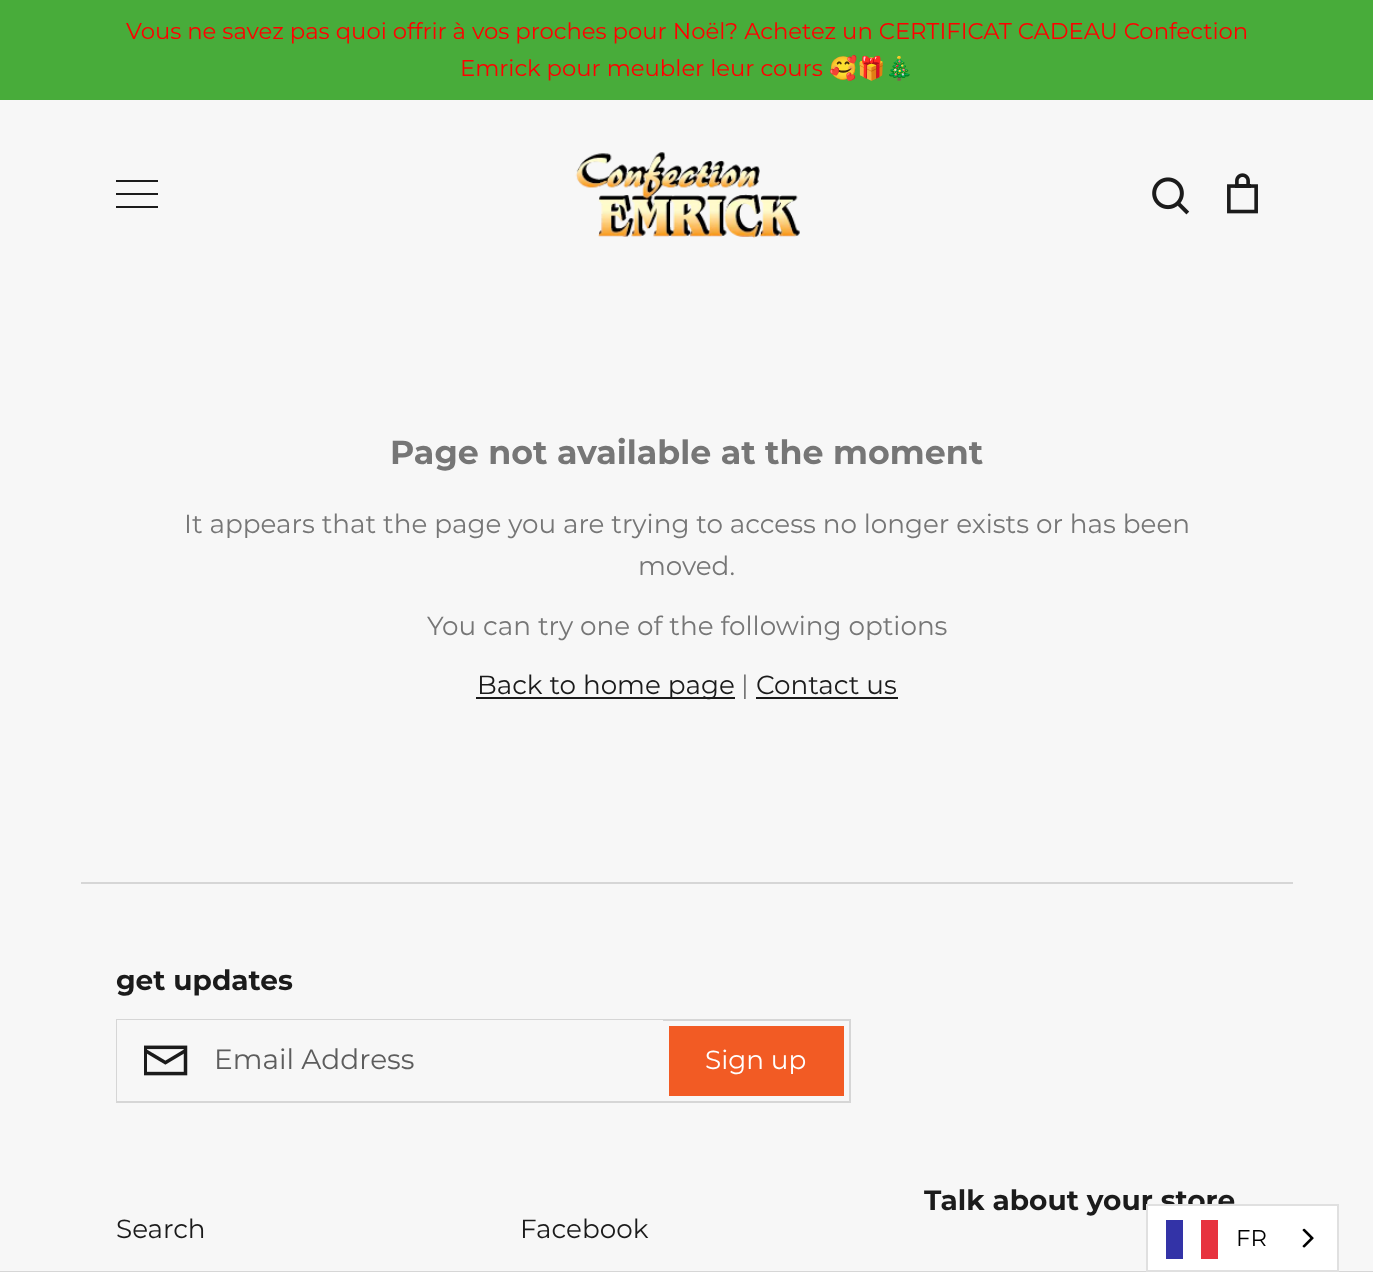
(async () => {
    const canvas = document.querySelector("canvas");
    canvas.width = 1373;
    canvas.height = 1272;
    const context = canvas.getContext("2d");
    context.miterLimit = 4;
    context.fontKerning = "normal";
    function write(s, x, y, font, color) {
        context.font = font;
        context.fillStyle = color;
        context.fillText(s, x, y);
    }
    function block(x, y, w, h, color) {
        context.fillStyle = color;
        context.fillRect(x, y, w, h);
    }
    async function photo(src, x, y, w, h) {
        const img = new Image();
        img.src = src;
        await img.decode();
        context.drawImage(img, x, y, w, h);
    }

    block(0, 0, 1373, 1272, "rgb(247, 247, 247)");
    block(0, 1271, 1373, 1, "rgb(214, 214, 214)");
    block(0, 0, 1373, 100, "rgb(72, 172, 58)");
    write("Vous ne savez pas quoi offrir à vos proches pour Noël? Achetez un CERTIFICAT CADEAU Confection", 126, 39, "22.75px Montserrat", "rgb(255, 0, 0)");
    write("Emrick pour meubler leur cours", 460, 76, "22.75px Montserrat", "rgb(255, 0, 0)");
    write("🥰🎁🎄", 829, 76, "22.75px Noto Color Emoji", "rgb(255, 0, 0)");
    block(116, 180, 42, 2, "rgb(27, 27, 27)");
    block(116, 193, 42, 2, "rgb(27, 27, 27)");
    block(116, 206, 42, 2, "rgb(27, 27, 27)");
    await photo("media/1.png", 575, 152, 225, 86);
    await photo("media/2.png", 1152, 177, 38, 38);
    await photo("media/3.png", 1227, 173, 31, 41);
    write("Page not available at the moment", 390, 464, "bold 33.25px Montserrat", "rgb(118, 118, 118)");
    write("It appears that the page you are trying to access no longer exists or has been", 184, 533, "26.25px Montserrat", "rgb(118, 118, 118)");
    write("moved.", 638, 575, "26.25px Montserrat", "rgb(118, 118, 118)");
    write("You can try one of the following options", 427, 635, "26.25px Montserrat", "rgb(118, 118, 118)");
    block(476, 697, 259, 2, "rgb(27, 27, 27)");
    write("Back to home page", 477, 694, "26.25px Montserrat", "rgb(27, 27, 27)");
    write("|", 741, 694, "26.25px Montserrat", "rgb(118, 118, 118)");
    write("Contact us", 756, 694, "26.25px Montserrat", "rgb(27, 27, 27)");
    block(756, 697, 142, 2, "rgb(27, 27, 27)");
    block(81, 882, 1212, 2, "rgb(214, 214, 214)");
    write("get updates", 116, 990, "bold 28px Montserrat", "rgb(27, 27, 27)");
    context.strokeStyle = "rgb(214, 214, 214)";
    context.lineWidth = 2;
    context.strokeRect(117, 1020, 733, 82);
    block(117, 1020, 546, 81, "rgb(247, 247, 247)");
    await photo("media/4.png", 144, 1045, 44, 31);
    write("Email Address", 214, 1069, "28px Montserrat", "rgb(93, 93, 93)");
    block(669, 1026, 175, 70, "rgb(242, 91, 36)");
    write("Sign up", 705, 1069, "26.25px Montserrat", "rgb(255, 255, 255)");
    write("Talk about your store", 924, 1210, "bold 28px Montserrat", "rgb(27, 27, 27)");
    write("Search", 116, 1238, "26.25px Montserrat", "rgb(27, 27, 27)");
    write("Facebook", 520, 1238, "26.25px Montserrat", "rgb(27, 27, 27)");
    context.fillStyle = "rgb(255, 255, 255)";
    context.beginPath();
    context.rect(1147, 1205, 191, 66);
    context.fill();
    context.strokeStyle = "rgb(224, 224, 224)";
    context.stroke();
    block(1166, 1220, 17, 39, "rgb(51, 51, 167)");
    block(1201, 1220, 17, 39, "rgb(231, 51, 63)");
    write("FR", 1236, 1246, "22.75px Montserrat", "rgb(0, 0, 0)");
    await photo("media/5.png", 1302, 1228, 12, 20);
})();
